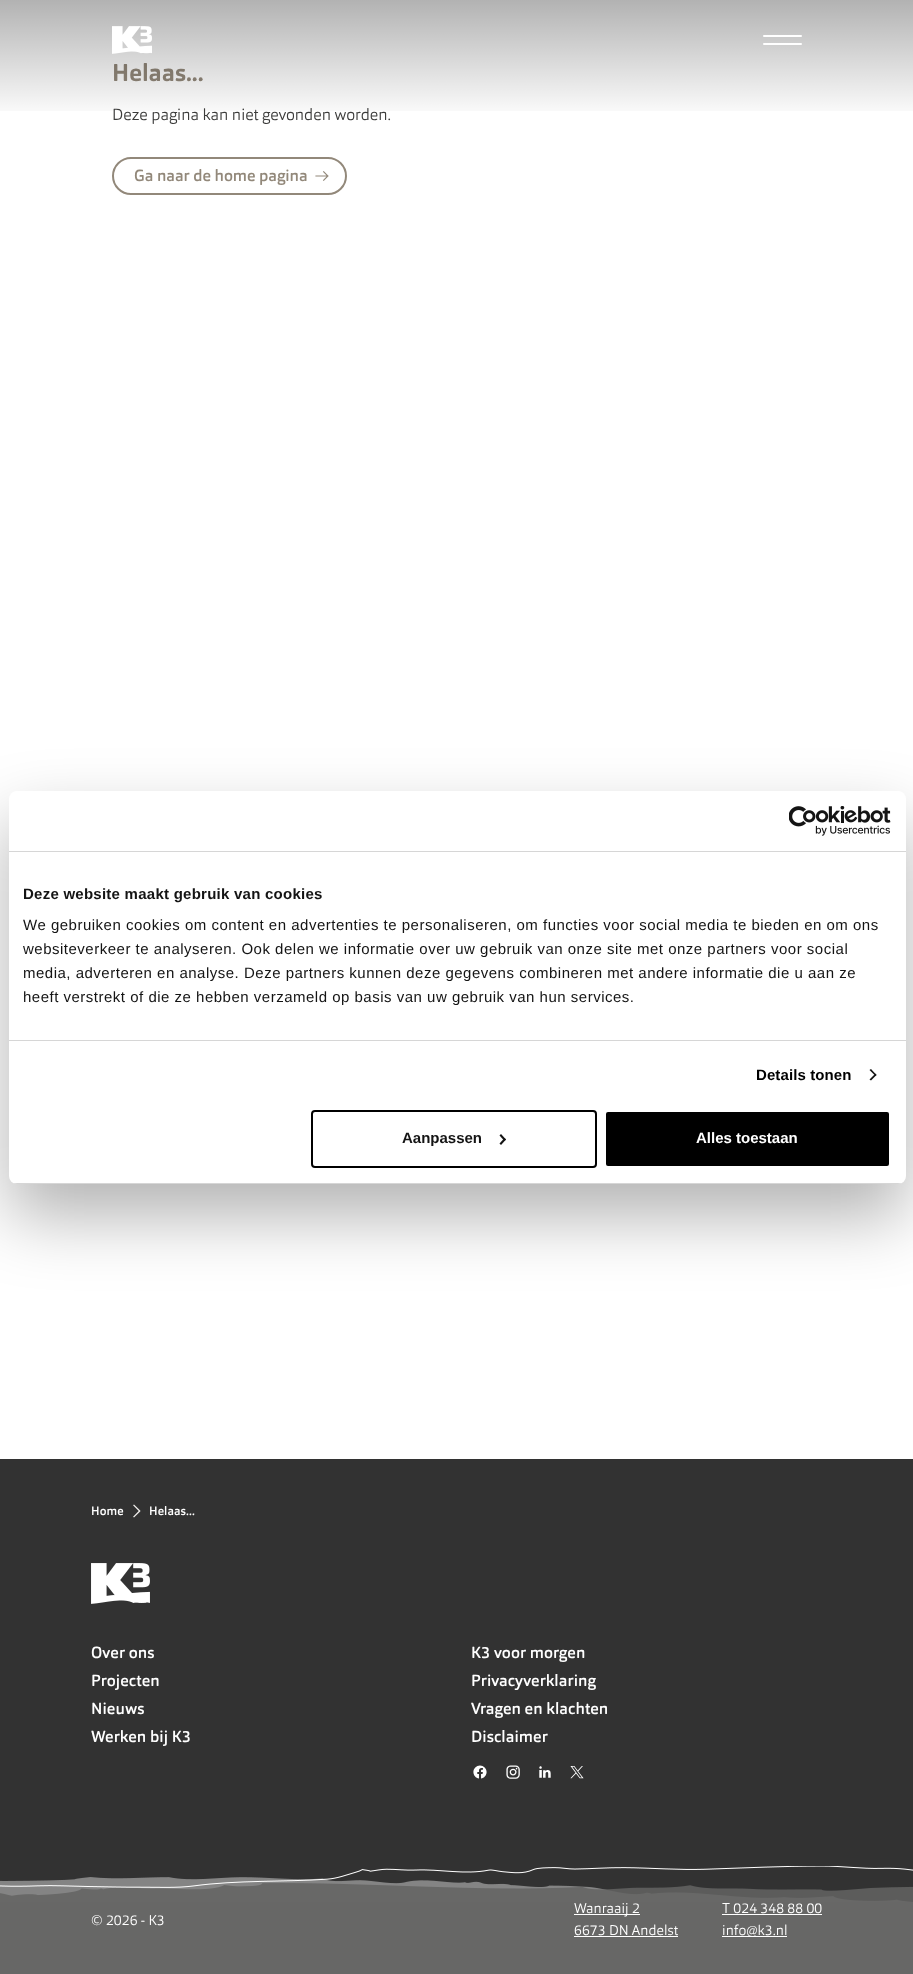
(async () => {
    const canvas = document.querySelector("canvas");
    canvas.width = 913;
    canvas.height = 1974;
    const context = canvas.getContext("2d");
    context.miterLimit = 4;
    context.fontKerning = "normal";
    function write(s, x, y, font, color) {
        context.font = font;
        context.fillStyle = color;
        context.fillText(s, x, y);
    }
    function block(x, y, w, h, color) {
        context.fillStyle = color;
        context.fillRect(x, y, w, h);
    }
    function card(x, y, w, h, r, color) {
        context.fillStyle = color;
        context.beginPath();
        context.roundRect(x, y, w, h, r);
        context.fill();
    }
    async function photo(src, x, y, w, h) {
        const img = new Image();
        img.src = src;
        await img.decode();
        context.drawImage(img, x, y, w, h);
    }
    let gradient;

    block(0, 0, 913, 1974, "rgb(255, 255, 255)");
    write("Helaas...", 112, 81, "bold 24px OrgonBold", "rgb(146, 136, 122)");
    write("Deze pagina kan niet gevonden worden.", 112, 120, "300 16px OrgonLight", "rgb(60, 60, 59)");
    gradient = context.createLinearGradient(457, 0, 457, 120);
    gradient.addColorStop(0, "rgba(0, 0, 0, 0.3)");
    gradient.addColorStop(1, "rgba(0, 0, 0, 0)");
    context.fillStyle = gradient;
    context.fillRect(0, 0, 913, 111);
    await photo("media/1.png", 112, 26, 40, 28);
    card(763, 35, 39, 2, 1, "rgb(255, 255, 255)");
    card(763, 43, 39, 2, 1, "rgb(255, 255, 255)");
    context.beginPath();
    context.roundRect(113, 158, 233, 36, 18);
    context.strokeStyle = "rgb(146, 136, 122)";
    context.lineWidth = 2;
    context.stroke();
    write("Ga naar de home pagina", 134, 181, "500 16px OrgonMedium", "rgb(146, 136, 122)");
    await photo("media/2.png", 315, 171, 14, 10);
    block(0, 1459, 913, 407, "rgb(50, 50, 50)");
    context.letterSpacing = "0.1px";
    write("Home", 91, 1515, "500 12px OrgonMedium", "rgb(255, 255, 255)");
    await photo("media/3.png", 133, 1504, 8, 14);
    write("Helaas...", 149, 1515, "500 12px OrgonMedium", "rgb(255, 255, 255)");
    await photo("media/4.png", 91, 1563, 59, 41);
    write("Over ons", 91, 1658, "500 16px OrgonMedium", "rgb(255, 255, 255)");
    write("Projecten", 91, 1686, "500 16px OrgonMedium", "rgb(255, 255, 255)");
    write("Nieuws", 91, 1714, "500 16px OrgonMedium", "rgb(255, 255, 255)");
    write("Werken bij K3", 91, 1742, "500 16px OrgonMedium", "rgb(255, 255, 255)");
    write("K3 voor morgen", 471, 1658, "500 16px OrgonMedium", "rgb(255, 255, 255)");
    write("Privacyverklaring", 471, 1686, "500 16px OrgonMedium", "rgb(255, 255, 255)");
    write("Vragen en klachten", 471, 1714, "500 16px OrgonMedium", "rgb(255, 255, 255)");
    write("Disclaimer", 471, 1742, "500 16px OrgonMedium", "rgb(255, 255, 255)");
    await photo("media/5.png", 473, 1765, 14, 14);
    await photo("media/6.png", 506, 1765, 14, 14);
    await photo("media/7.png", 539, 1766, 12, 12);
    await photo("media/8.png", 570, 1766, 14, 13);
    await photo("media/9.png", 0, 1866, 913, 36);
    block(0, 1902, 913, 72, "rgb(103, 103, 102)");
    write("© 2026 - K3", 91, 1925, "300 14px OrgonLight", "rgb(255, 255, 255)");
    block(574, 1914, 66, 1, "rgb(255, 255, 255)");
    write("Wanraaij 2", 574, 1913, "300 14px OrgonLight", "rgb(255, 255, 255)");
    write("6673 DN Andelst", 574, 1935, "300 14px OrgonLight", "rgb(255, 255, 255)");
    block(574, 1936, 104, 1, "rgb(255, 255, 255)");
    write("T 024 348 88 00", 722, 1913, "300 14px OrgonLight", "rgb(255, 255, 255)");
    block(722, 1914, 100, 1, "rgb(255, 255, 255)");
    block(722, 1936, 65, 1, "rgb(255, 255, 255)");
    write("info@k3.nl", 722, 1935, "300 14px OrgonLight", "rgb(255, 255, 255)");
    context.fillStyle = "rgba(0, 0, 0, 0.3)";
    context.filter = "blur(34px)";
    context.beginPath();
    context.roundRect(9, 823, 897, 393, 8);
    context.fill();
    context.filter = "none";
    card(9, 791, 897, 393, 8, "rgb(255, 255, 255)");
    block(9, 851, 897, 1, "rgb(214, 214, 214)");
    await photo("media/10.png", 789, 806, 102, 30);
    block(9, 1040, 897, 1, "rgb(214, 214, 214)");
    context.letterSpacing = "0.25px";
    write("Deze website maakt gebruik van cookies", 23, 899, "bold 15px Liberation Sans", "rgb(20, 20, 20)");
    context.letterSpacing = "0.5px";
    write("We gebruiken cookies om content en advertenties te personaliseren, om functies voor social media te bieden en om ons", 23, 930, "15px Liberation Sans", "rgb(20, 20, 20)");
    write("websiteverkeer te analyseren. Ook delen we informatie over uw gebruik van onze site met onze partners voor social", 23, 954, "15px Liberation Sans", "rgb(20, 20, 20)");
    write("media, adverteren en analyse. Deze partners kunnen deze gegevens combineren met andere informatie die u aan ze", 23, 978, "15px Liberation Sans", "rgb(20, 20, 20)");
    write("heeft verstrekt of die ze hebben verzameld op basis van uw gebruik van hun services.", 23, 1002, "15px Liberation Sans", "rgb(20, 20, 20)");
    context.letterSpacing = "0.1px";
    write("Details tonen", 756, 1080, "bold 15px Liberation Sans", "rgb(0, 0, 0)");
    context.fillStyle = "rgb(20, 20, 20)";
    context.beginPath();
    context.moveTo(871, 1069);
    context.lineTo(876.5, 1075);
    context.lineTo(875.5, 1076);
    context.lineTo(869.5, 1070);
    context.closePath();
    context.fill();
    context.beginPath();
    context.moveTo(875.5, 1073.5);
    context.lineTo(876.5, 1075);
    context.lineTo(871, 1080.5);
    context.lineTo(869.5, 1079.5);
    context.closePath();
    context.fill();
    context.save();
    context.beginPath();
    context.roundRect(9, 791, 897, 393, 8);
    context.clip();
    block(9, 1183, 897, 1, "rgb(214, 214, 214)");
    context.restore();
    context.beginPath();
    context.roundRect(312, 1111, 284, 56, 3);
    context.strokeStyle = "rgb(0, 0, 0)";
    context.stroke();
    context.letterSpacing = "0px";
    write("Aanpassen", 402, 1143, "bold 15px Liberation Sans", "rgb(20, 20, 20)");
    context.beginPath();
    context.moveTo(501, 1134);
    context.lineTo(506, 1139.5);
    context.lineTo(504.5, 1141);
    context.lineTo(499.5, 1135.5);
    context.closePath();
    context.fill();
    context.beginPath();
    context.moveTo(504.5, 1138);
    context.lineTo(506, 1139.5);
    context.lineTo(501, 1145);
    context.lineTo(499.5, 1143.5);
    context.closePath();
    context.fill();
    context.fillStyle = "rgb(0, 0, 0)";
    context.beginPath();
    context.roundRect(605, 1111, 285, 56, 3);
    context.fill();
    context.strokeStyle = "rgb(255, 255, 255)";
    context.stroke();
    write("Alles toestaan", 696, 1143, "bold 15px Liberation Sans", "rgb(255, 255, 255)");
})();
